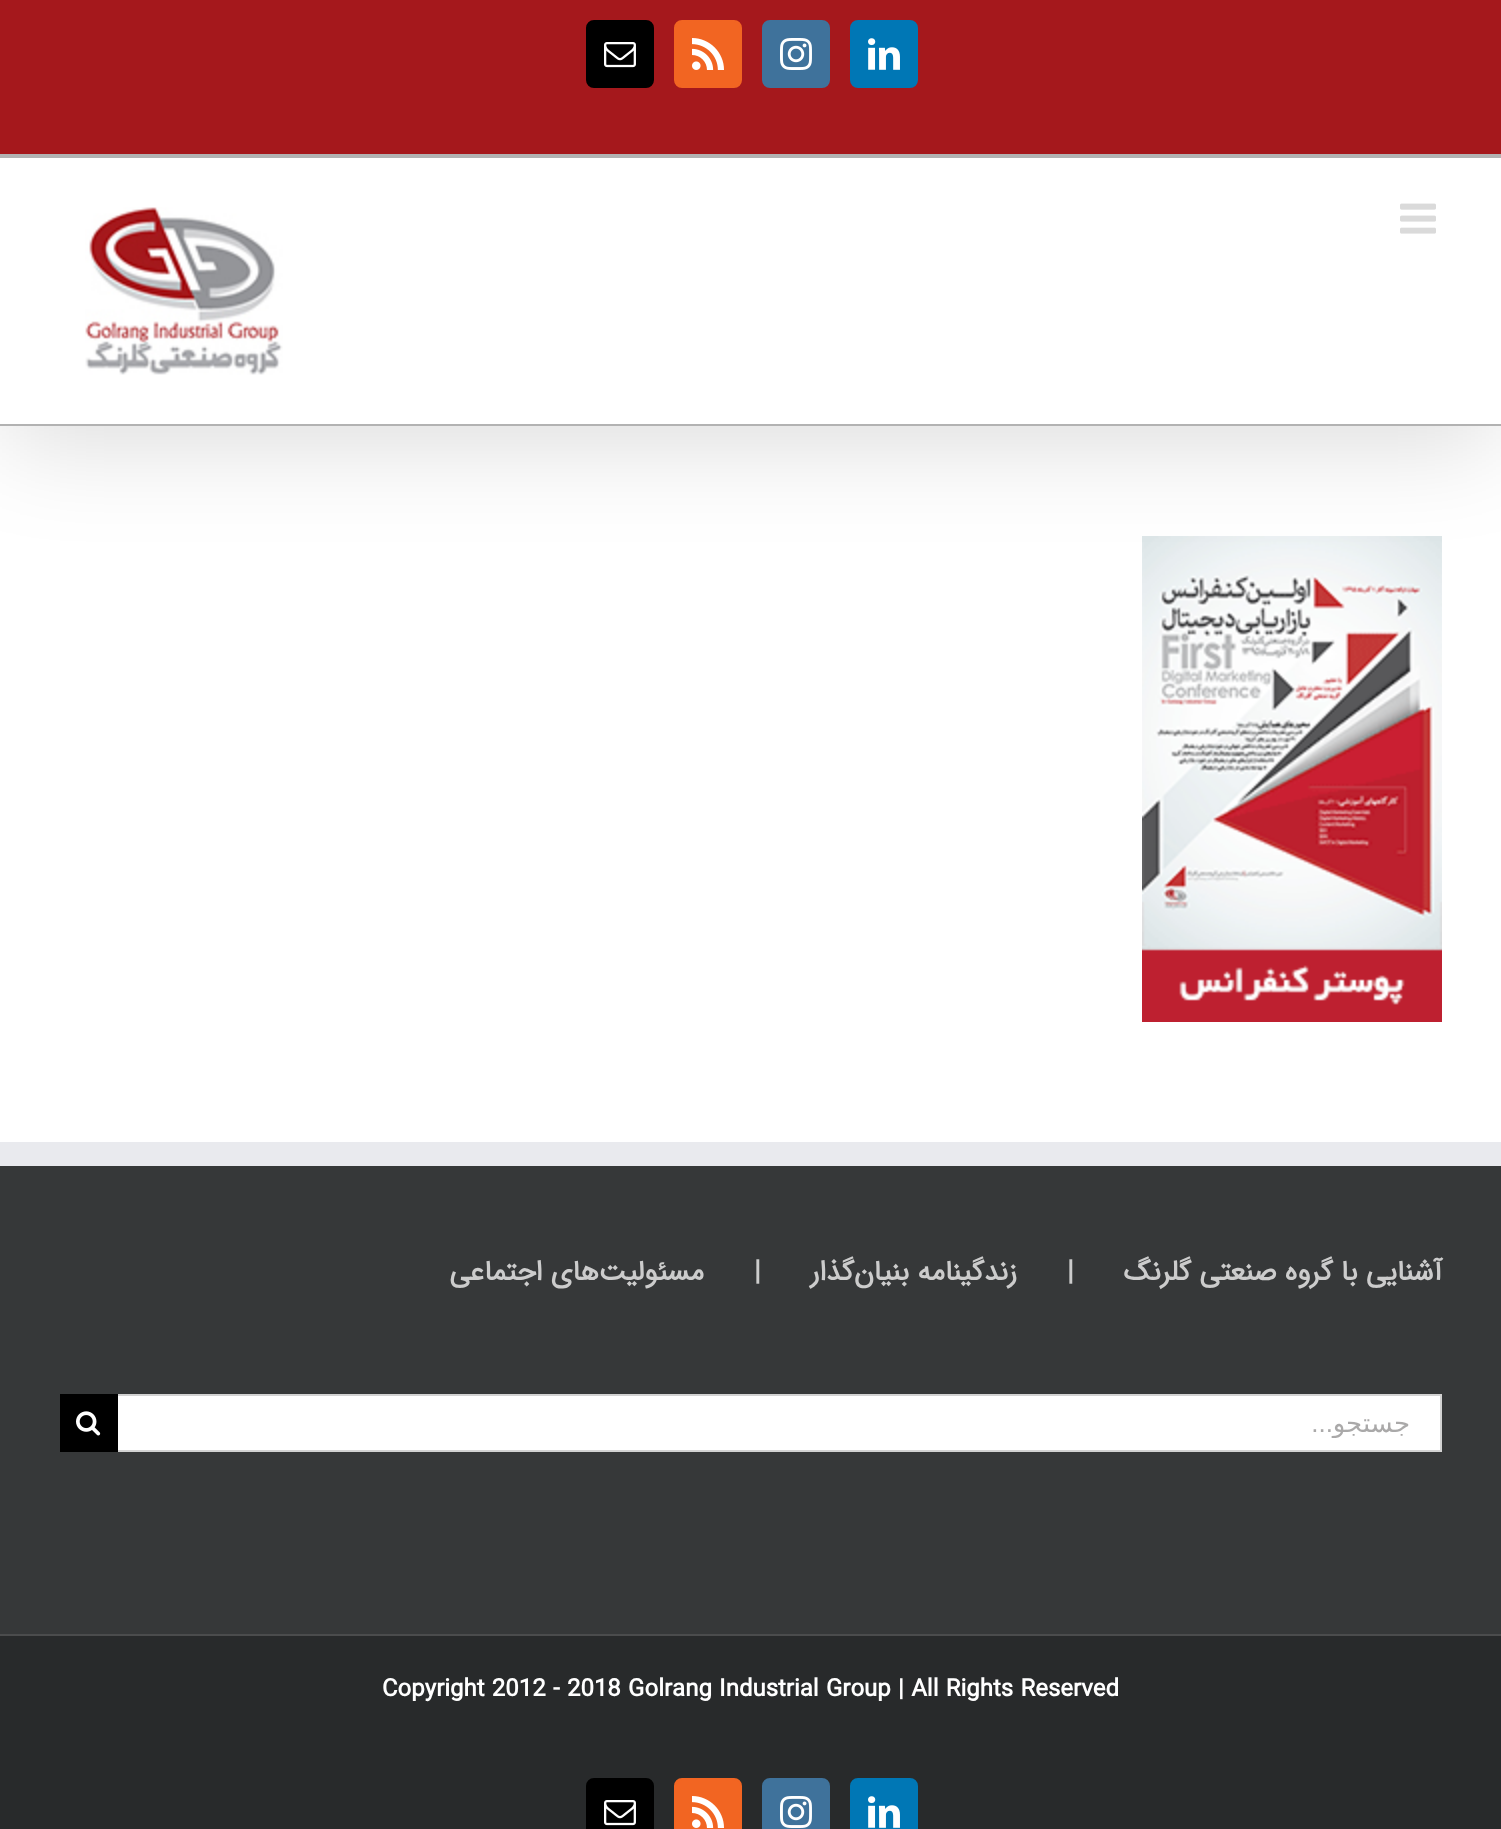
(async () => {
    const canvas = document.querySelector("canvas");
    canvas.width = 1501;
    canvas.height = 1829;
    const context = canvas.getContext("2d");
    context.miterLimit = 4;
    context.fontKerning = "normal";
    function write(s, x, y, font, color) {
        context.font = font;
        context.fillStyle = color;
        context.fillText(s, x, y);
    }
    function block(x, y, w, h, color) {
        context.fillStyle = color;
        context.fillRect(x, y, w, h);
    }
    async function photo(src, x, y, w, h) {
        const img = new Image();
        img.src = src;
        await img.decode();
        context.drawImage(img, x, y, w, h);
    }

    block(0, 0, 1501, 1829, "rgb(255, 255, 255)");
    await photo("media/7.png", 1142, 536, 300, 486);
    context.fillStyle = "rgba(0, 0, 0, 0.14)";
    context.filter = "blur(50px)";
    context.beginPath();
    context.rect(4, 24, 1494, 418);
    context.fill();
    context.filter = "none";
    block(0, 0, 1501, 154, "rgb(165, 24, 28)");
    block(0, 154, 1501, 4, "rgb(178, 178, 178)");
    context.fillStyle = "rgb(0, 119, 181)";
    context.beginPath();
    context.roundRect(851, 21, 66, 66, 7);
    context.fill();
    context.strokeStyle = "rgb(0, 119, 181)";
    context.lineWidth = 2;
    context.stroke();
    await photo("media/1.png", 868, 38, 32, 32);
    context.fillStyle = "rgb(63, 114, 155)";
    context.beginPath();
    context.roundRect(763, 21, 66, 66, 7);
    context.fill();
    context.strokeStyle = "rgb(63, 114, 155)";
    context.stroke();
    await photo("media/2.png", 780, 38, 32, 32);
    context.fillStyle = "rgb(242, 101, 34)";
    context.beginPath();
    context.roundRect(675, 21, 66, 66, 7);
    context.fill();
    context.strokeStyle = "rgb(242, 101, 34)";
    context.stroke();
    await photo("media/3.png", 692, 38, 32, 32);
    context.fillStyle = "rgb(0, 0, 0)";
    context.beginPath();
    context.roundRect(587, 21, 66, 66, 7);
    context.fill();
    context.strokeStyle = "rgb(0, 0, 0)";
    context.stroke();
    await photo("media/4.png", 604, 42, 32, 26);
    block(0, 158, 1501, 266, "rgb(255, 255, 255)");
    block(0, 424, 1501, 2, "rgb(178, 178, 178)");
    await photo("media/5.png", 1400, 203, 36, 31);
    await photo("media/6.png", 85, 207, 198, 168);
    block(0, 1166, 1501, 468, "rgb(54, 56, 57)");
    block(0, 1142, 1501, 24, "rgb(233, 234, 238)");
    context.direction = "rtl";
    write("آشنایی با گروه صنعتی گلرنگ", 1442, 1280, "bold 28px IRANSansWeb", "rgb(204, 204, 204)");
    context.direction = "ltr";
    write("|", 1067, 1280, "bold 28px IRANSansWeb", "rgb(204, 204, 204)");
    context.direction = "rtl";
    write("زندگینامه بنیان‌گذار", 1017, 1280, "bold 28px IRANSansWeb", "rgb(204, 204, 204)");
    context.direction = "ltr";
    write("|", 754, 1280, "bold 28px IRANSansWeb", "rgb(204, 204, 204)");
    context.direction = "rtl";
    write("مسئولیت‌های اجتماعی", 704, 1280, "bold 28px IRANSansWeb", "rgb(204, 204, 204)");
    block(118, 1396, 1322, 54, "rgb(255, 255, 255)");
    block(118, 1394, 1324, 2, "rgb(210, 210, 210)");
    block(1440, 1394, 2, 58, "rgb(210, 210, 210)");
    block(118, 1450, 1324, 2, "rgb(210, 210, 210)");
    context.save();
    context.beginPath();
    context.rect(148, 1408, 1262, 30);
    context.clip();
    write("جستجو", 1410, 1432, "26px DejaVu Sans", "rgb(170, 169, 169)");
    context.restore();
    write("...", 1333, 1432, "26px Liberation Sans", "rgb(170, 169, 169)");
    block(60, 1394, 58, 58, "rgb(0, 0, 0)");
    await photo("media/8.png", 76, 1411, 25, 25);
    block(0, 1636, 1501, 193, "rgb(40, 42, 43)");
    block(0, 1634, 1501, 2, "rgb(75, 76, 77)");
    context.direction = "ltr";
    write("Copyright 2012 - 2018 Golrang Industrial Group | All Rights Reserved", 382, 1696, "bold 24px IRANSansWeb", "rgb(255, 255, 255)");
    context.fillStyle = "rgb(0, 119, 181)";
    context.beginPath();
    context.roundRect(851, 1779, 66, 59, 7);
    context.fill();
    context.strokeStyle = "rgb(0, 119, 181)";
    context.stroke();
    await photo("media/1.png", 868, 1796, 32, 32);
    context.fillStyle = "rgb(63, 114, 155)";
    context.beginPath();
    context.roundRect(763, 1779, 66, 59, 7);
    context.fill();
    context.strokeStyle = "rgb(63, 114, 155)";
    context.stroke();
    await photo("media/2.png", 780, 1796, 32, 32);
    context.fillStyle = "rgb(242, 101, 34)";
    context.beginPath();
    context.roundRect(675, 1779, 66, 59, 7);
    context.fill();
    context.strokeStyle = "rgb(242, 101, 34)";
    context.stroke();
    await photo("media/3.png", 692, 1796, 32, 32);
    context.fillStyle = "rgb(0, 0, 0)";
    context.beginPath();
    context.roundRect(587, 1779, 66, 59, 7);
    context.fill();
    context.strokeStyle = "rgb(0, 0, 0)";
    context.stroke();
    await photo("media/4.png", 604, 1800, 32, 26);
})();
